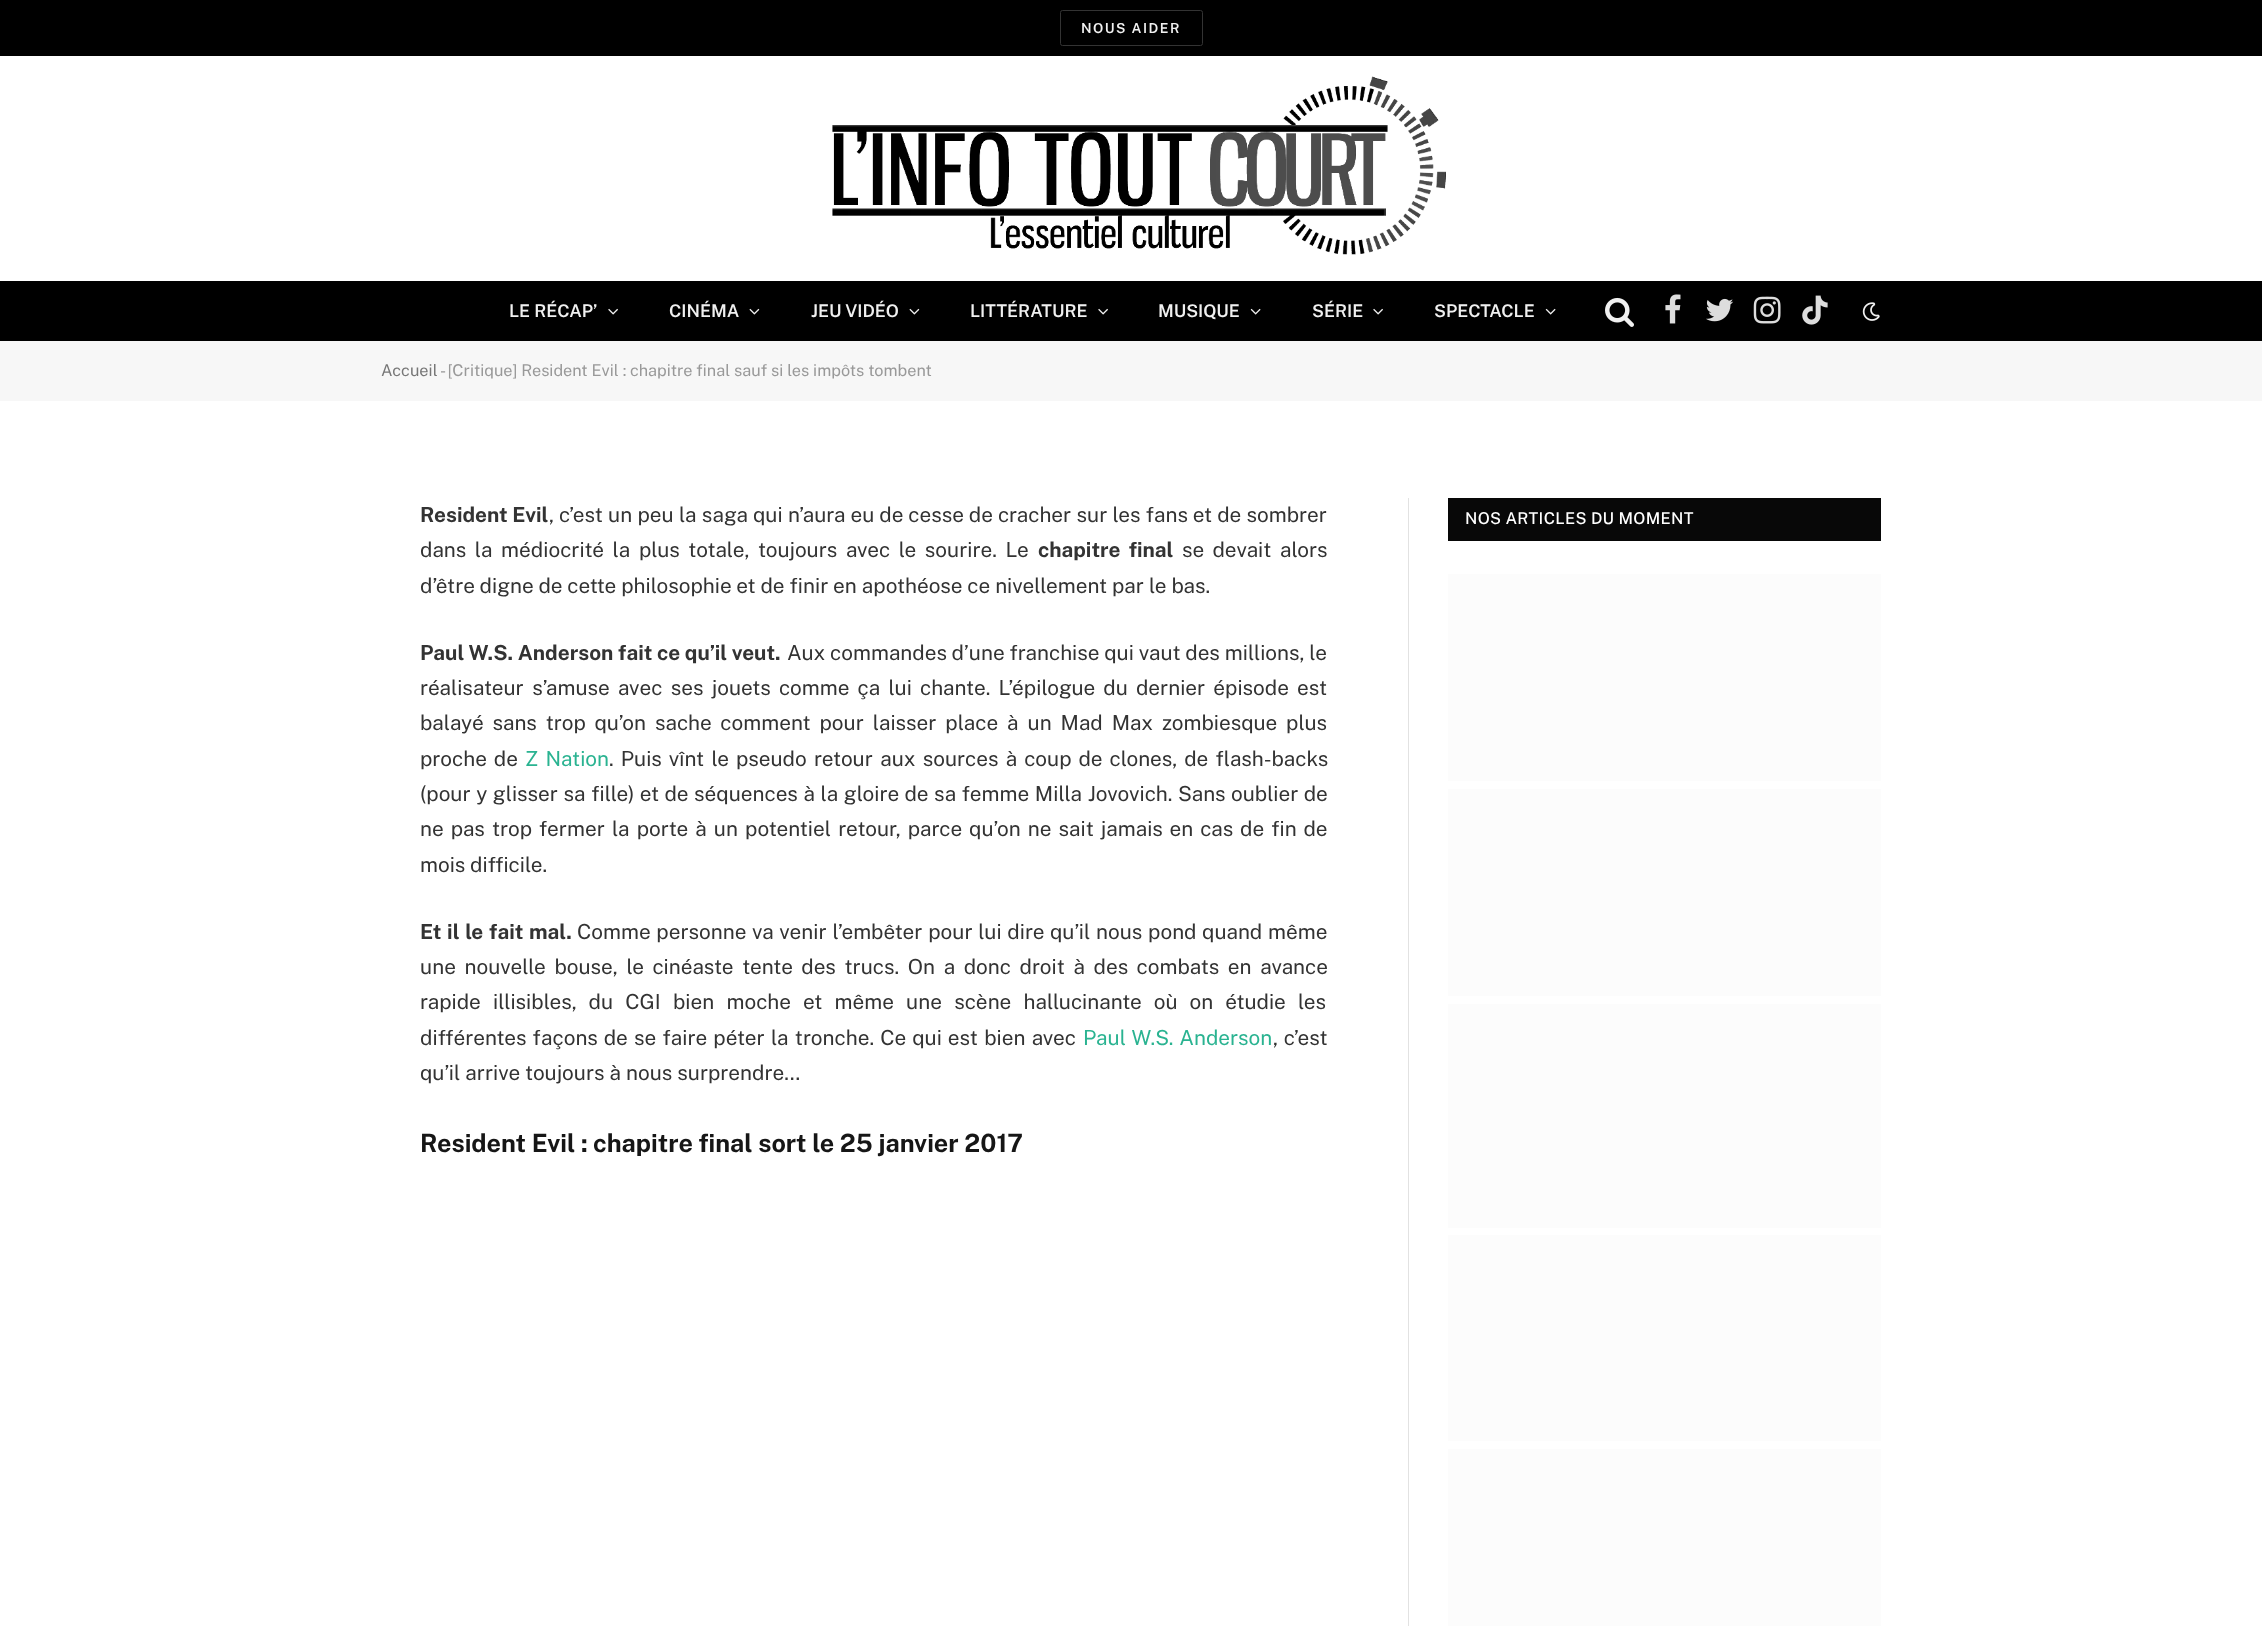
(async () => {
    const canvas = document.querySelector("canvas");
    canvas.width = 2262;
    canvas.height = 1626;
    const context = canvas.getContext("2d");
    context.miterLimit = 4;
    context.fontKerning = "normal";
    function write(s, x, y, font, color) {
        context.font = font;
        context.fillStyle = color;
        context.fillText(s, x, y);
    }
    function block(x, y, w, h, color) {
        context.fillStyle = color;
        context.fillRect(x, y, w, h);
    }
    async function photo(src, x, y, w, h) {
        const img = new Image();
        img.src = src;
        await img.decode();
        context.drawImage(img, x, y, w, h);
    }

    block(0, 0, 2262, 1626, "rgb(255, 255, 255)");
    block(0, 0, 2262, 56, "rgb(0, 0, 0)");
    context.beginPath();
    context.roundRect(1060.5, 10.5, 142, 35, 2);
    context.strokeStyle = "rgb(51, 51, 51)";
    context.stroke();
    context.letterSpacing = "1.5px";
    write("NOUS AIDER", 1081, 33, "600 13.75px Public Sans", "rgb(240, 240, 240)");
    await photo("media/1.png", 832, 76, 614, 179);
    block(0, 281, 2262, 60, "rgb(0, 0, 0)");
    context.letterSpacing = "0px";
    write("LE RÉCAP’", 509, 317, "600 17.5px Public Sans", "rgb(240, 240, 240)");
    await photo("media/2.png", 608, 308, 10, 7);
    write("CINÉMA", 669, 317, "600 17.5px Public Sans", "rgb(240, 240, 240)");
    await photo("media/3.png", 749, 308, 11, 7);
    write("JEU VIDÉO", 811, 317, "600 17.5px Public Sans", "rgb(240, 240, 240)");
    await photo("media/3.png", 909, 308, 11, 7);
    write("LITTÉRATURE", 970, 317, "600 17.5px Public Sans", "rgb(240, 240, 240)");
    await photo("media/2.png", 1098, 308, 10, 7);
    write("MUSIQUE", 1158, 317, "600 17.5px Public Sans", "rgb(240, 240, 240)");
    await photo("media/4.png", 1250, 308, 11, 7);
    write("SÉRIE", 1312, 317, "600 17.5px Public Sans", "rgb(240, 240, 240)");
    await photo("media/2.png", 1373, 308, 10, 7);
    write("SPECTACLE", 1434, 317, "600 17.5px Public Sans", "rgb(240, 240, 240)");
    await photo("media/4.png", 1545, 308, 11, 7);
    await photo("media/5.png", 1605, 297, 29, 30);
    await photo("media/6.png", 1665, 294, 16, 30);
    await photo("media/7.png", 1706, 298, 28, 24);
    await photo("media/8.png", 1753, 296, 28, 28);
    await photo("media/9.png", 1802, 295, 26, 30);
    await photo("media/10.png", 1862, 302, 18, 19);
    block(0, 341, 2262, 60, "rgb(247, 247, 247)");
    write("Accueil", 381, 376, "16.25px Public Sans", "rgb(119, 119, 119)");
    write("- [Critique] Resident Evil : chapitre final sauf si les impôts tombent", 440, 376, "16.25px Public Sans", "rgb(153, 153, 153)");
    write("Resident Evil", 420, 522, "bold 20.75px Public Sans", "rgb(51, 51, 51)");
    context.wordSpacing = "0.25px";
    write(", c’est un peu la saga qui n’aura eu de cesse de cracher sur les fans et de sombrer", 549, 522, "20.75px Public Sans", "rgb(51, 51, 51)");
    context.wordSpacing = "3.6px";
    write("dans la médiocrité la plus totale, toujours avec le sourire. Le", 420, 557, "20.75px Public Sans", "rgb(51, 51, 51)");
    write("chapitre final", 1038, 557, "bold 20.75px Public Sans", "rgb(51, 51, 51)");
    write("se devait alors", 1182, 557, "20.75px Public Sans", "rgb(51, 51, 51)");
    context.wordSpacing = "0px";
    write("d’être digne de cette philosophie et de finir en apothéose ce nivellement par le bas.", 420, 593, "20.75px Public Sans", "rgb(51, 51, 51)");
    write("Paul W.S. Anderson fait ce qu’il veut.", 420, 660, "bold 20.75px Public Sans", "rgb(51, 51, 51)");
    write("Aux commandes d’une franchise qui vaut des millions, le", 787, 660, "20.75px Public Sans", "rgb(51, 51, 51)");
    context.wordSpacing = "3.4px";
    write("réalisateur s’amuse avec ses jouets comme ça lui chante. L’épilogue du dernier épisode est", 420, 695, "20.75px Public Sans", "rgb(51, 51, 51)");
    context.wordSpacing = "3.9px";
    write("balayé sans trop qu’on sache comment pour laisser place à un Mad Max zombiesque plus", 420, 730, "20.75px Public Sans", "rgb(51, 51, 51)");
    context.wordSpacing = "2.25px";
    write("proche de", 420, 766, "20.75px Public Sans", "rgb(51, 51, 51)");
    write("Z Nation", 525, 766, "20.75px Public Sans", "rgb(42, 179, 145)");
    write(". Puis vînt le pseudo retour aux sources à coup de clones, de flash-backs", 609, 766, "20.75px Public Sans", "rgb(51, 51, 51)");
    context.wordSpacing = "0.6px";
    write("(pour y glisser sa fille) et de séquences à la gloire de sa femme Milla Jovovich. Sans oublier de", 420, 801, "20.75px Public Sans", "rgb(51, 51, 51)");
    context.wordSpacing = "2.1px";
    write("ne pas trop fermer la porte à un potentiel retour, parce qu’on ne sait jamais en cas de fin de", 420, 836, "20.75px Public Sans", "rgb(51, 51, 51)");
    context.wordSpacing = "0px";
    write("mois difficile.", 420, 872, "20.75px Public Sans", "rgb(51, 51, 51)");
    context.wordSpacing = "1px";
    write("Et il le fait mal.", 420, 939, "bold 20.75px Public Sans", "rgb(51, 51, 51)");
    context.wordSpacing = "0.75px";
    write("Comme personne va venir l’embêter pour lui dire qu’il nous pond quand même", 577, 939, "20.75px Public Sans", "rgb(51, 51, 51)");
    context.wordSpacing = "3.75px";
    write("une nouvelle bouse, le cinéaste tente des trucs. On a donc droit à des combats en avance", 420, 974, "20.75px Public Sans", "rgb(51, 51, 51)");
    context.wordSpacing = "7.25px";
    write("rapide illisibles, du CGI bien moche et même une scène hallucinante où on étudie les", 420, 1009, "20.75px Public Sans", "rgb(51, 51, 51)");
    context.wordSpacing = "1.25px";
    write("différentes façons de se faire péter la tronche. Ce qui est bien avec", 420, 1045, "20.75px Public Sans", "rgb(51, 51, 51)");
    context.wordSpacing = "1px";
    write("Paul W.S. Anderson", 1083, 1045, "20.75px Public Sans", "rgb(42, 179, 145)");
    write(", c’est", 1273, 1045, "20.75px Public Sans", "rgb(51, 51, 51)");
    context.wordSpacing = "0px";
    write("qu’il arrive toujours à nous surprendre…", 420, 1080, "20.75px Public Sans", "rgb(51, 51, 51)");
    write("Resident Evil : chapitre final sort le 25 janvier 2017", 420, 1152, "bold 25.1px Public Sans", "rgb(22, 22, 22)");
    block(1408, 498, 1, 1128, "rgb(226, 226, 226)");
    block(1448, 498, 433, 43, "rgb(8, 8, 8)");
    context.letterSpacing = "0.3px";
    write("NOS ARTICLES DU MOMENT", 1465, 524, "500 16.25px Public Sans", "rgb(255, 255, 255)");
    block(1448, 574, 433, 207, "rgb(252, 252, 252)");
    block(1448, 789, 433, 207, "rgb(252, 252, 252)");
    block(1448, 1004, 433, 224, "rgb(252, 252, 252)");
    block(1448, 1235, 433, 206, "rgb(252, 252, 252)");
    block(1448, 1449, 433, 177, "rgb(252, 252, 252)");
})();
